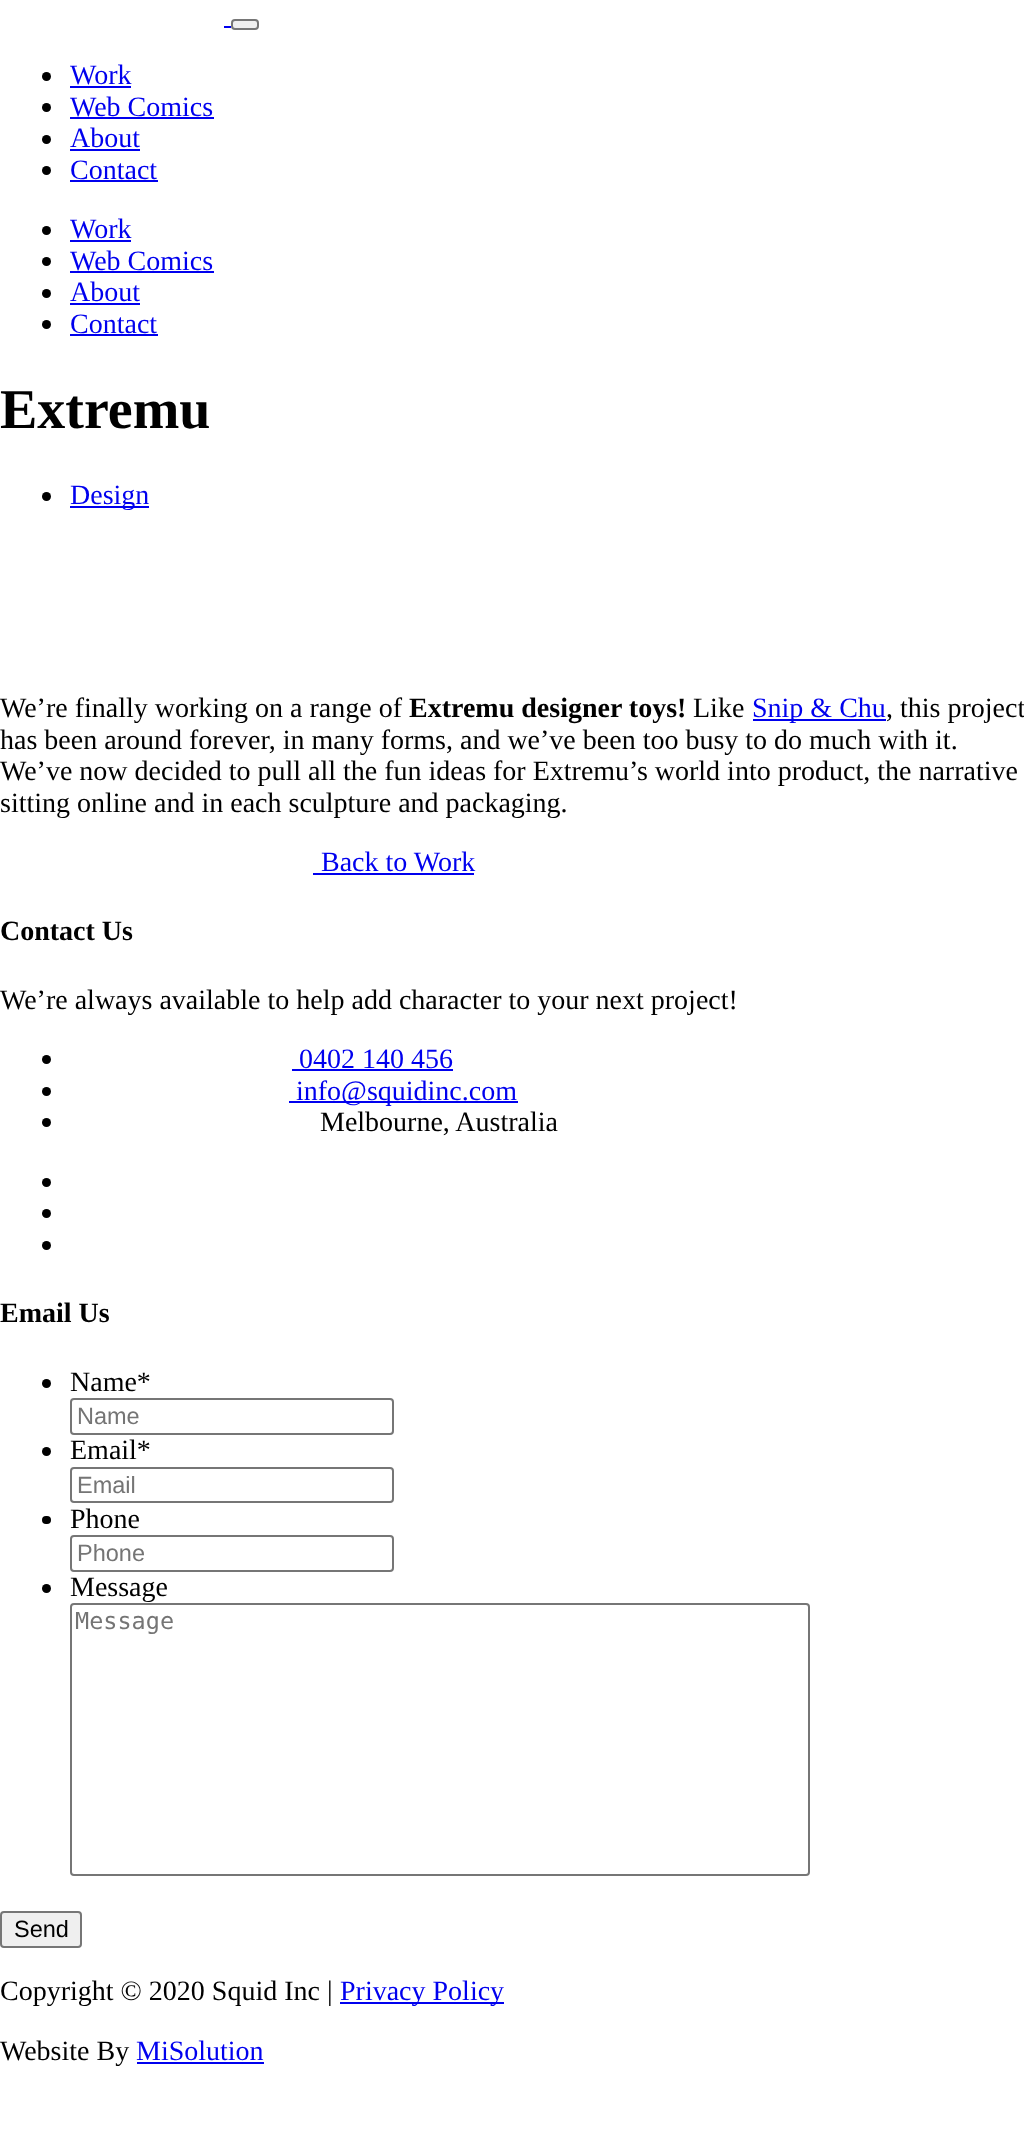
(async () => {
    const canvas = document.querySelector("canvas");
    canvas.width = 1024;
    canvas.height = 2148;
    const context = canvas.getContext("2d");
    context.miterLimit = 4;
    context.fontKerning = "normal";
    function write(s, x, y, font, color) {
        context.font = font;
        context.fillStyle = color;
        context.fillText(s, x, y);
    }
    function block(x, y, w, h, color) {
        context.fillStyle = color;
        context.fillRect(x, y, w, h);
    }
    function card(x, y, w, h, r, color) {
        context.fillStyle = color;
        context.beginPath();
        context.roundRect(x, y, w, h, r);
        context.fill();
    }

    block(0, 0, 1024, 2148, "rgb(255, 255, 255)");
    block(224, 26, 7, 2, "rgb(0, 0, 238)");
    context.fillStyle = "rgb(239, 239, 239)";
    context.beginPath();
    context.roundRect(232, 20, 26, 9, 3);
    context.fill();
    context.strokeStyle = "rgb(118, 118, 118)";
    context.lineWidth = 2;
    context.stroke();
    context.fillStyle = "rgb(0, 0, 0)";
    context.beginPath();
    context.arc(46.5, 76.5, 4.5, 0, Math.PI * 2);
    context.fill();
    write("Work", 70, 84, "28px Liberation Serif", "rgb(0, 0, 238)");
    block(70, 86, 61, 2, "rgb(0, 0, 238)");
    context.fillStyle = "rgb(0, 0, 0)";
    context.beginPath();
    context.arc(46.5, 107.5, 4.5, 0, Math.PI * 2);
    context.fill();
    write("Web Comics", 70, 116, "28px Liberation Serif", "rgb(0, 0, 238)");
    block(70, 117, 144, 2, "rgb(0, 0, 238)");
    context.fillStyle = "rgb(0, 0, 0)";
    context.beginPath();
    context.arc(46.5, 139.5, 4.5, 0, Math.PI * 2);
    context.fill();
    write("About", 70, 147, "28px Liberation Serif", "rgb(0, 0, 238)");
    block(70, 149, 70, 2, "rgb(0, 0, 238)");
    context.fillStyle = "rgb(0, 0, 0)";
    context.beginPath();
    context.arc(46.5, 170.5, 4.5, 0, Math.PI * 2);
    context.fill();
    write("Contact", 70, 179, "28px Liberation Serif", "rgb(0, 0, 238)");
    block(70, 180, 88, 2, "rgb(0, 0, 238)");
    context.fillStyle = "rgb(0, 0, 0)";
    context.beginPath();
    context.arc(46.5, 230.5, 4.5, 0, Math.PI * 2);
    context.fill();
    write("Work", 70, 238, "28px Liberation Serif", "rgb(0, 0, 238)");
    block(70, 240, 61, 2, "rgb(0, 0, 238)");
    context.fillStyle = "rgb(0, 0, 0)";
    context.beginPath();
    context.arc(46.5, 261.5, 4.5, 0, Math.PI * 2);
    context.fill();
    write("Web Comics", 70, 270, "28px Liberation Serif", "rgb(0, 0, 238)");
    block(70, 271, 144, 2, "rgb(0, 0, 238)");
    context.fillStyle = "rgb(0, 0, 0)";
    context.beginPath();
    context.arc(46.5, 293.5, 4.5, 0, Math.PI * 2);
    context.fill();
    write("About", 70, 301, "28px Liberation Serif", "rgb(0, 0, 238)");
    block(70, 303, 70, 2, "rgb(0, 0, 238)");
    context.fillStyle = "rgb(0, 0, 0)";
    context.beginPath();
    context.arc(46.5, 324.5, 4.5, 0, Math.PI * 2);
    context.fill();
    write("Contact", 70, 333, "28px Liberation Serif", "rgb(0, 0, 238)");
    block(70, 334, 88, 2, "rgb(0, 0, 238)");
    write("Extremu", 0, 428, "bold 56px Liberation Serif", "rgb(0, 0, 0)");
    context.beginPath();
    context.arc(46.5, 496.5, 4.5, 0, Math.PI * 2);
    context.fill();
    block(70, 506, 79, 2, "rgb(0, 0, 238)");
    write("Design", 70, 504, "28px Liberation Serif", "rgb(0, 0, 238)");
    write("We’re finally working on a range of", 0, 717, "28px Liberation Serif", "rgb(0, 0, 0)");
    write("Extremu designer toys!", 409, 717, "bold 28px Liberation Serif", "rgb(0, 0, 0)");
    write("Like", 693, 717, "28px Liberation Serif", "rgb(0, 0, 0)");
    block(753, 719, 133, 2, "rgb(0, 0, 238)");
    write("Snip & Chu", 752, 717, "28px Liberation Serif", "rgb(0, 0, 238)");
    write(", this project", 886, 717, "28px Liberation Serif", "rgb(0, 0, 0)");
    write("has been around forever, in many forms, and we’ve been too busy to do much with it.", 0, 749, "28px Liberation Serif", "rgb(0, 0, 0)");
    write("We’ve now decided to pull all the fun ideas for Extremu’s world into product, the narrative", 0, 780, "28px Liberation Serif", "rgb(0, 0, 0)");
    write("sitting online and in each sculpture and packaging.", 0, 812, "28px Liberation Serif", "rgb(0, 0, 0)");
    write("Back to Work", 321, 871, "28px Liberation Serif", "rgb(0, 0, 238)");
    block(313, 873, 161, 2, "rgb(0, 0, 238)");
    write("Contact Us", 0, 940, "bold 28px Liberation Serif", "rgb(0, 0, 0)");
    write("We’re always available to help add character to your next project!", 0, 1009, "28px Liberation Serif", "rgb(0, 0, 0)");
    context.beginPath();
    context.arc(46.5, 1059.5, 4.5, 0, Math.PI * 2);
    context.fill();
    write("0402 140 456", 299, 1068, "28px Liberation Serif", "rgb(0, 0, 238)");
    block(292, 1069, 161, 2, "rgb(0, 0, 238)");
    context.fillStyle = "rgb(0, 0, 0)";
    context.beginPath();
    context.arc(46.5, 1091.5, 4.5, 0, Math.PI * 2);
    context.fill();
    block(289, 1101, 229, 2, "rgb(0, 0, 238)");
    write("info@squidinc.com", 296, 1100, "28px Liberation Serif", "rgb(0, 0, 238)");
    context.fillStyle = "rgb(0, 0, 0)";
    context.beginPath();
    context.arc(46.5, 1122.5, 4.5, 0, Math.PI * 2);
    context.fill();
    write("Melbourne, Australia", 320, 1131, "28px Liberation Serif", "rgb(0, 0, 0)");
    context.beginPath();
    context.arc(46.5, 1182.5, 4.5, 0, Math.PI * 2);
    context.fill();
    context.beginPath();
    context.arc(46.5, 1213.5, 4.5, 0, Math.PI * 2);
    context.fill();
    context.beginPath();
    context.arc(46.5, 1245.5, 4.5, 0, Math.PI * 2);
    context.fill();
    write("Email Us", 0, 1322, "bold 28px Liberation Serif", "rgb(0, 0, 0)");
    context.beginPath();
    context.arc(46.5, 1383.5, 4.5, 0, Math.PI * 2);
    context.fill();
    write("Name*", 70, 1391, "28px Liberation Serif", "rgb(0, 0, 0)");
    context.beginPath();
    context.roundRect(71, 1399, 322, 35, 3);
    context.stroke();
    write("Name", 77, 1424, "23.5px Liberation Sans", "rgb(117, 117, 117)");
    context.fillStyle = "rgb(0, 0, 0)";
    context.beginPath();
    context.arc(46.5, 1451.5, 4.5, 0, Math.PI * 2);
    context.fill();
    write("Email*", 70, 1459, "28px Liberation Serif", "rgb(0, 0, 0)");
    context.beginPath();
    context.roundRect(71, 1468, 322, 34, 3);
    context.stroke();
    write("Email", 77, 1493, "23.5px Liberation Sans", "rgb(117, 117, 117)");
    card(42, 1516, 9, 8, 4, "rgb(0, 0, 0)");
    write("Phone", 70, 1528, "28px Liberation Serif", "rgb(0, 0, 0)");
    context.beginPath();
    context.roundRect(71, 1536, 322, 35, 3);
    context.stroke();
    write("Phone", 77, 1561, "23.5px Liberation Sans", "rgb(117, 117, 117)");
    context.fillStyle = "rgb(0, 0, 0)";
    context.beginPath();
    context.arc(46.5, 1588.5, 4.5, 0, Math.PI * 2);
    context.fill();
    write("Message", 70, 1596, "28px Liberation Serif", "rgb(0, 0, 0)");
    context.beginPath();
    context.roundRect(71, 1604, 738, 271, 3);
    context.stroke();
    write("Message", 75, 1629, "23.5px DejaVu Sans Mono", "rgb(117, 117, 117)");
    context.fillStyle = "rgb(239, 239, 239)";
    context.beginPath();
    context.roundRect(1, 1912, 80, 35, 3);
    context.fill();
    context.stroke();
    write("Send", 14, 1937, "23.5px Liberation Sans", "rgb(0, 0, 0)");
    write("Copyright © 2020 Squid Inc |", 0, 2000, "28px Liberation Serif", "rgb(0, 0, 0)");
    block(340, 2002, 164, 2, "rgb(0, 0, 238)");
    write("Privacy Policy", 340, 2000, "28px Liberation Serif", "rgb(0, 0, 238)");
    write("Website By", 0, 2060, "28px Liberation Serif", "rgb(0, 0, 0)");
    write("MiSolution", 136, 2060, "28px Liberation Serif", "rgb(0, 0, 238)");
    block(137, 2062, 127, 2, "rgb(0, 0, 238)");
})();
